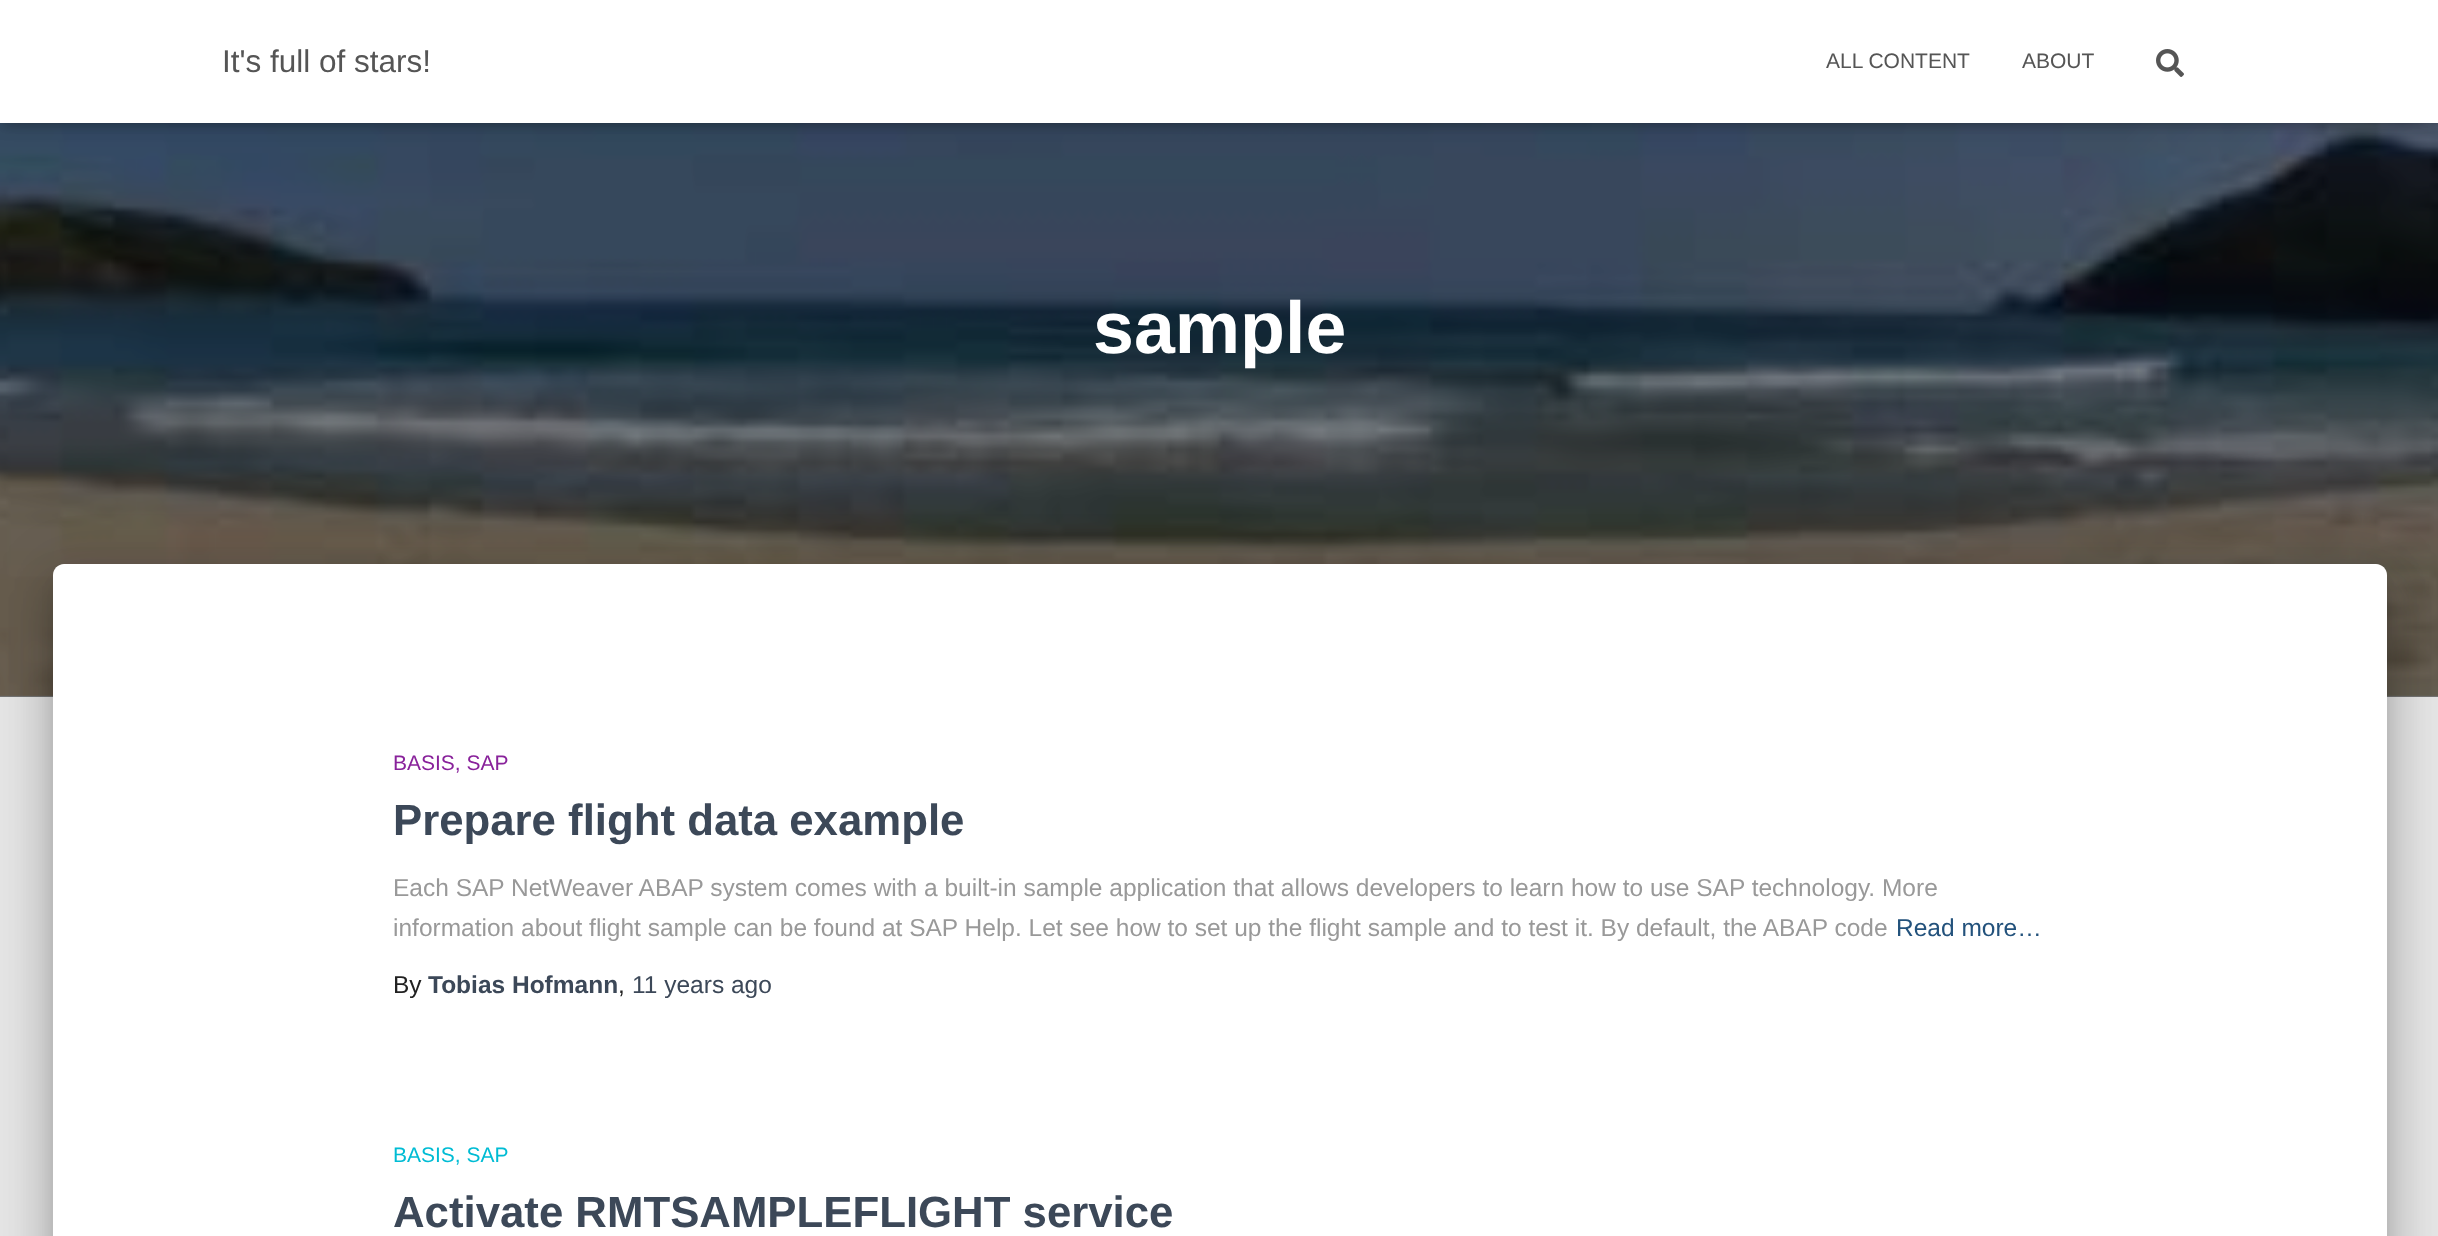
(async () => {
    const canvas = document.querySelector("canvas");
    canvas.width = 2438;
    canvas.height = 1236;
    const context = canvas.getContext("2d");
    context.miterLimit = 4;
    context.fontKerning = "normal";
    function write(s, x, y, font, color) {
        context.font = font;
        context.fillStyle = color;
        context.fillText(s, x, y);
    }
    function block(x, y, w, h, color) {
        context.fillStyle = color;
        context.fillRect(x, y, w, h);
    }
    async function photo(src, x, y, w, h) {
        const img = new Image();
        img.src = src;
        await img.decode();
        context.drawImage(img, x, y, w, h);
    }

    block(0, 0, 2438, 1236, "rgb(229, 229, 229)");
    block(0, 695, 2438, 2, "rgb(115, 115, 115)");
    await photo("media/2.png", 0, 123, 2438, 573);
    context.fillStyle = "rgba(0, 0, 0, 0.1)";
    context.filter = "blur(4.5px)";
    context.beginPath();
    context.rect(4, 11, 2432, 115);
    context.fill();
    context.filter = "none";
    context.fillStyle = "rgba(0, 0, 0, 0.12)";
    context.filter = "blur(9px)";
    context.beginPath();
    context.rect(0, 2, 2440, 122);
    context.fill();
    context.filter = "none";
    context.fillStyle = "rgba(0, 0, 0, 0.42)";
    context.filter = "blur(9px)";
    context.beginPath();
    context.rect(11, 12, 2418, 102);
    context.fill();
    context.filter = "none";
    block(0, 0, 2438, 123, "rgb(255, 255, 255)");
    write("It's full of stars!", 222, 72, "31.5px Liberation Sans", "rgb(85, 85, 85)");
    write("ALL CONTENT", 1826, 68, "21px Liberation Sans", "rgb(85, 85, 85)");
    write("ABOUT", 2022, 68, "21px Liberation Sans", "rgb(85, 85, 85)");
    await photo("media/1.png", 2156, 49, 28, 28);
    write("sample", 1093, 353, "bold 73.5px Liberation Sans", "rgb(255, 255, 255)");
    context.fillStyle = "rgba(0, 0, 0, 0.2)";
    context.filter = "blur(9px)";
    context.beginPath();
    context.roundRect(61, 586, 2317, 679, 2);
    context.fill();
    context.filter = "none";
    context.fillStyle = "rgba(0, 0, 0, 0.12)";
    context.filter = "blur(26px)";
    context.beginPath();
    context.roundRect(44, 565, 2352, 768, 19);
    context.fill();
    context.filter = "none";
    context.fillStyle = "rgba(0, 0, 0, 0.14)";
    context.filter = "blur(21px)";
    context.beginPath();
    context.roundRect(49, 588, 2342, 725, 14);
    context.fill();
    context.filter = "none";
    context.fillStyle = "rgb(255, 255, 255)";
    context.beginPath();
    context.moveTo(64, 564);
    context.lineTo(2376, 564);
    context.bezierCurveTo(2382, 564, 2387, 569, 2387, 575);
    context.lineTo(2387, 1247);
    context.lineTo(53, 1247);
    context.lineTo(53, 575);
    context.bezierCurveTo(53, 569, 58, 564, 64, 564);
    context.closePath();
    context.fill();
    write("BASIS, SAP", 393, 770, "21px Liberation Sans", "rgb(137, 34, 155)");
    write("Prepare flight data example", 393, 835, "bold 43.75px Liberation Sans", "rgb(60, 72, 88)");
    write("Each SAP NetWeaver ABAP system comes with a built-in sample application that allows developers to learn how to use SAP technology. More", 393, 896, "24.5px Liberation Sans", "rgb(153, 153, 153)");
    write("information about flight sample can be found at SAP Help. Let see how to set up the flight sample and to test it. By default, the ABAP code", 393, 936, "24.5px Liberation Sans", "rgb(153, 153, 153)");
    write("Read more…", 1896, 936, "24.5px Liberation Sans", "rgb(35, 82, 124)");
    write("By", 393, 993, "24.5px Liberation Sans", "rgb(33, 33, 33)");
    write("Tobias Hofmann", 428, 993, "bold 24.5px Liberation Sans", "rgb(60, 72, 88)");
    write(",", 618, 993, "24.5px Liberation Sans", "rgb(33, 33, 33)");
    write("11 years ago", 632, 993, "24.5px Liberation Sans", "rgb(60, 72, 88)");
    write("BASIS, SAP", 393, 1162, "21px Liberation Sans", "rgb(0, 188, 212)");
    write("Activate RMTSAMPLEFLIGHT service", 393, 1227, "bold 43.75px Liberation Sans", "rgb(60, 72, 88)");
})();
